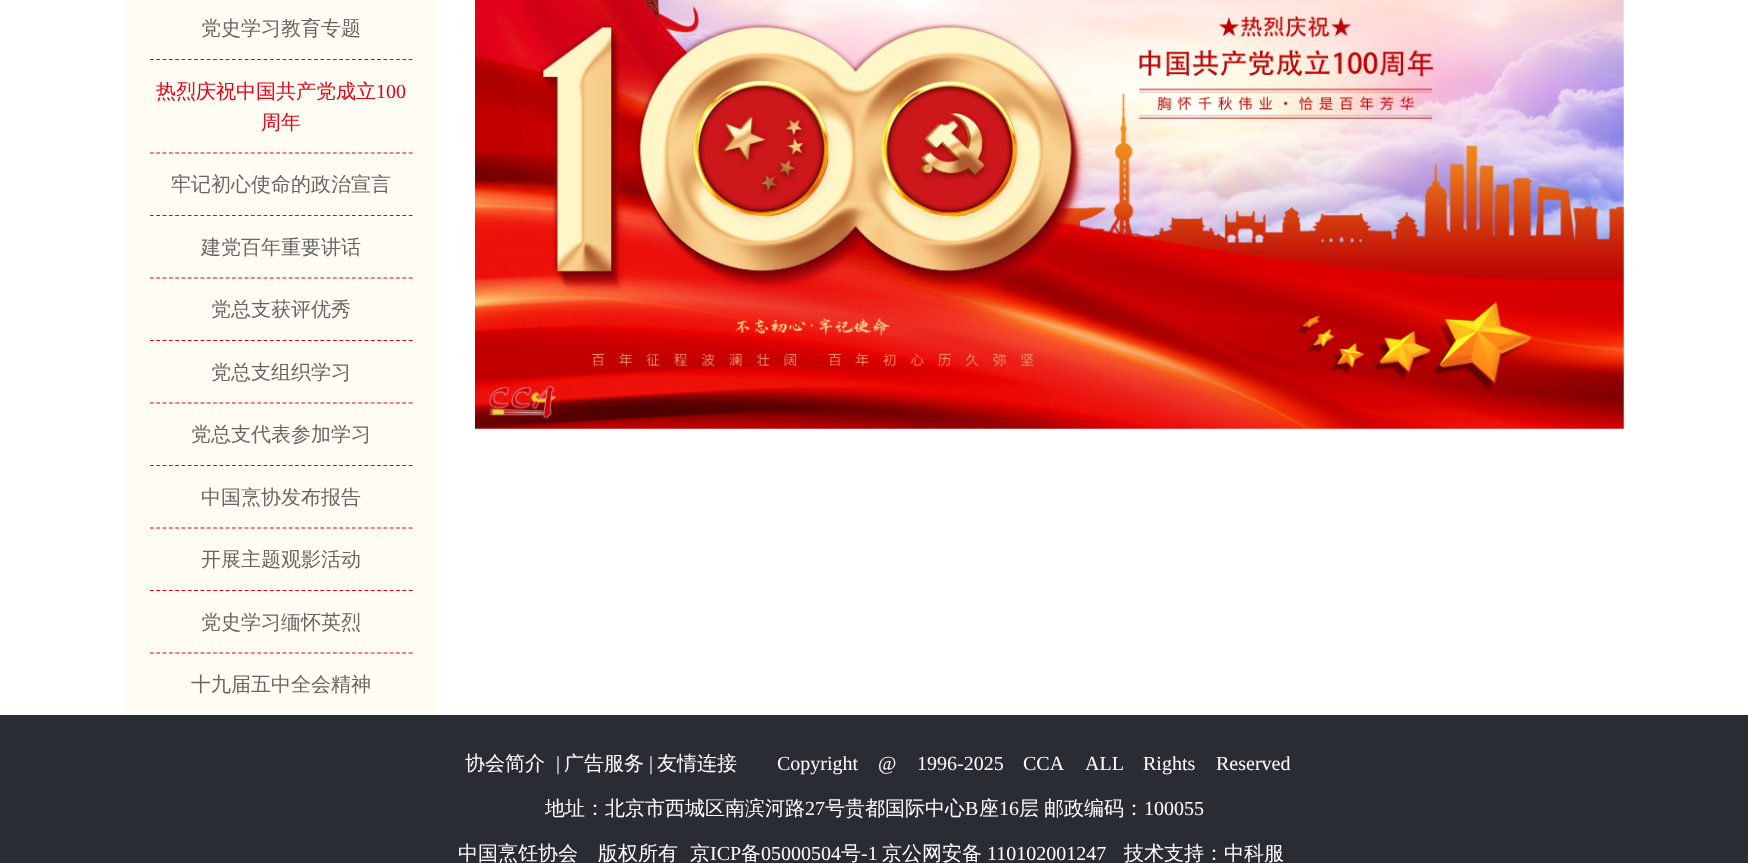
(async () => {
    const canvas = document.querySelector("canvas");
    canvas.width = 1748;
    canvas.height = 863;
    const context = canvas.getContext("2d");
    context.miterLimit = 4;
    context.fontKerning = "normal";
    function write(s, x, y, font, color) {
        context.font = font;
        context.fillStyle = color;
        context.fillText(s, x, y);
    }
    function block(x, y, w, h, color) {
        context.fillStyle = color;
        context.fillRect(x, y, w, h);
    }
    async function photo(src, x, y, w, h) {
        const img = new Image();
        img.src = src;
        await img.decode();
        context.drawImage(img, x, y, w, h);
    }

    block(0, 0, 1748, 863, "rgb(255, 255, 255)");
    block(125, 0, 313, 715, "rgb(255, 252, 243)");
    context.beginPath();
    context.moveTo(150, 59.5);
    context.lineTo(412.5, 59.5);
    context.strokeStyle = "rgb(230, 0, 18)";
    context.lineWidth = 1.2;
    context.setLineDash([3.75, 2.56]);
    context.stroke();
    write("党史学习教育专题", 201, 35, "500 20px WenQuanYi Zen Hei", "rgb(102, 102, 102)");
    context.beginPath();
    context.moveTo(150, 153);
    context.lineTo(412.5, 153);
    context.stroke();
    write("热烈庆祝中国共产党成立", 156, 98, "500 20px WenQuanYi Zen Hei", "rgb(230, 0, 18)");
    write("100", 376, 98, "20px Liberation Serif", "rgb(230, 0, 18)");
    write("周年", 261, 129, "500 20px WenQuanYi Zen Hei", "rgb(230, 0, 18)");
    context.beginPath();
    context.moveTo(150, 215.5);
    context.lineTo(412.5, 215.5);
    context.stroke();
    write("牢记初心使命的政治宣言", 171, 191, "500 20px WenQuanYi Zen Hei", "rgb(102, 102, 102)");
    context.beginPath();
    context.moveTo(150, 278);
    context.lineTo(412.5, 278);
    context.stroke();
    write("建党百年重要讲话", 201, 254, "500 20px WenQuanYi Zen Hei", "rgb(102, 102, 102)");
    context.beginPath();
    context.moveTo(150, 340.5);
    context.lineTo(412.5, 340.5);
    context.stroke();
    write("党总支获评优秀", 211, 316, "500 20px WenQuanYi Zen Hei", "rgb(102, 102, 102)");
    context.beginPath();
    context.moveTo(150, 403);
    context.lineTo(412.5, 403);
    context.stroke();
    write("党总支组织学习", 211, 379, "500 20px WenQuanYi Zen Hei", "rgb(102, 102, 102)");
    context.beginPath();
    context.moveTo(150, 465.5);
    context.lineTo(412.5, 465.5);
    context.stroke();
    write("党总支代表参加学习", 191, 441, "500 20px WenQuanYi Zen Hei", "rgb(102, 102, 102)");
    context.beginPath();
    context.moveTo(150, 528);
    context.lineTo(412.5, 528);
    context.stroke();
    write("中国烹协发布报告", 201, 504, "500 20px WenQuanYi Zen Hei", "rgb(102, 102, 102)");
    context.beginPath();
    context.moveTo(150, 590.5);
    context.lineTo(412.5, 590.5);
    context.stroke();
    write("开展主题观影活动", 201, 566, "500 20px WenQuanYi Zen Hei", "rgb(102, 102, 102)");
    context.beginPath();
    context.moveTo(150, 653);
    context.lineTo(412.5, 653);
    context.stroke();
    write("党史学习缅怀英烈", 201, 629, "500 20px WenQuanYi Zen Hei", "rgb(102, 102, 102)");
    write("十九届五中全会精神", 191, 691, "500 20px WenQuanYi Zen Hei", "rgb(102, 102, 102)");
    await photo("media/1.png", 475, 0, 1149, 429);
    block(0, 715, 1748, 148, "rgb(41, 44, 51)");
    write("协会简介", 465, 770, "500 20px WenQuanYi Zen Hei", "rgb(255, 255, 255)");
    write("|", 556, 770, "20px Liberation Serif", "rgb(255, 255, 255)");
    write("广告服务", 564, 770, "500 20px WenQuanYi Zen Hei", "rgb(255, 255, 255)");
    write("|", 649, 770, "20px Liberation Serif", "rgb(255, 255, 255)");
    write("友情连接", 657, 770, "500 20px WenQuanYi Zen Hei", "rgb(255, 255, 255)");
    write("Copyright", 777, 770, "20px Liberation Serif", "rgb(255, 255, 255)");
    write("@", 878, 770, "20px Liberation Serif", "rgb(255, 255, 255)");
    write("1996-2025", 917, 770, "20px Liberation Serif", "rgb(255, 255, 255)");
    write("CCA", 1023, 770, "20px Liberation Serif", "rgb(255, 255, 255)");
    write("ALL", 1085, 770, "20px Liberation Serif", "rgb(255, 255, 255)");
    write("Rights", 1143, 770, "20px Liberation Serif", "rgb(255, 255, 255)");
    write("Reserved", 1216, 770, "20px Liberation Serif", "rgb(255, 255, 255)");
    write("地址：北京市西城区南滨河路", 545, 815, "500 20px WenQuanYi Zen Hei", "rgb(255, 255, 255)");
    write("27", 805, 815, "20px Liberation Serif", "rgb(255, 255, 255)");
    write("号贵都国际中心", 825, 815, "500 20px WenQuanYi Zen Hei", "rgb(255, 255, 255)");
    write("B", 965, 815, "20px Liberation Serif", "rgb(255, 255, 255)");
    write("座", 979, 815, "500 20px WenQuanYi Zen Hei", "rgb(255, 255, 255)");
    write("16", 999, 815, "20px Liberation Serif", "rgb(255, 255, 255)");
    write("层", 1019, 815, "500 20px WenQuanYi Zen Hei", "rgb(255, 255, 255)");
    write("邮政编码：", 1044, 815, "500 20px WenQuanYi Zen Hei", "rgb(255, 255, 255)");
    write("100055", 1144, 815, "20px Liberation Serif", "rgb(255, 255, 255)");
    write("中国烹饪协会　版权所有", 458, 860, "500 20px WenQuanYi Zen Hei", "rgb(255, 255, 255)");
    write("京", 690, 860, "500 20px WenQuanYi Zen Hei", "rgb(255, 255, 255)");
    write("ICP", 710, 860, "20px Liberation Serif", "rgb(255, 255, 255)");
    write("备", 741, 860, "500 20px WenQuanYi Zen Hei", "rgb(255, 255, 255)");
    write("05000504", 761, 860, "20px Liberation Serif", "rgb(255, 255, 255)");
    write("号", 841, 860, "500 20px WenQuanYi Zen Hei", "rgb(255, 255, 255)");
    write("-1", 861, 860, "20px Liberation Serif", "rgb(255, 255, 255)");
    write("京公网安备", 882, 860, "500 20px WenQuanYi Zen Hei", "rgb(255, 255, 255)");
    write("110102001247", 987, 860, "20px Liberation Serif", "rgb(255, 255, 255)");
    write("技术支持：中科服", 1124, 860, "500 20px WenQuanYi Zen Hei", "rgb(255, 255, 255)");
})();
